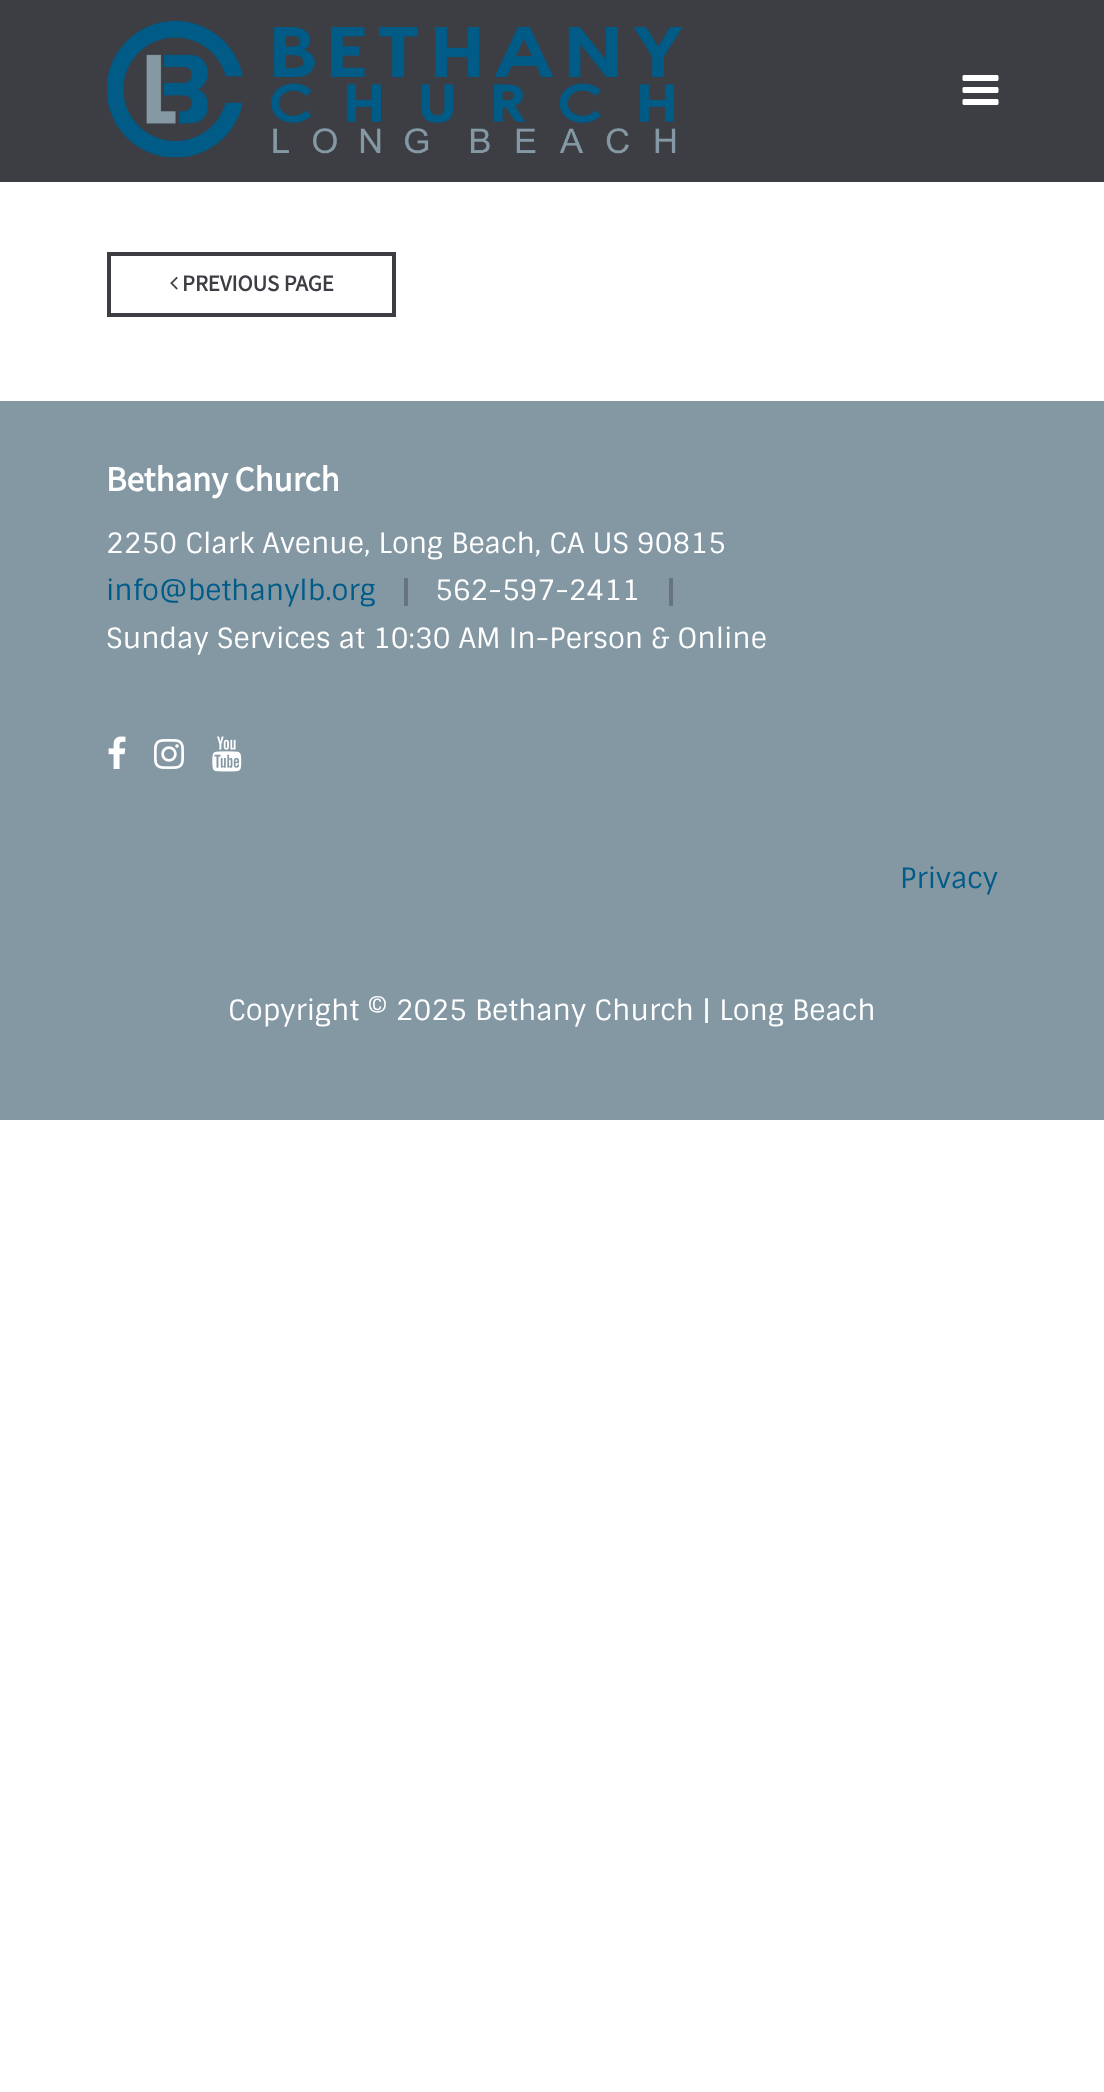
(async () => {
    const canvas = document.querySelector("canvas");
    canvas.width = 1104;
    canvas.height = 2092;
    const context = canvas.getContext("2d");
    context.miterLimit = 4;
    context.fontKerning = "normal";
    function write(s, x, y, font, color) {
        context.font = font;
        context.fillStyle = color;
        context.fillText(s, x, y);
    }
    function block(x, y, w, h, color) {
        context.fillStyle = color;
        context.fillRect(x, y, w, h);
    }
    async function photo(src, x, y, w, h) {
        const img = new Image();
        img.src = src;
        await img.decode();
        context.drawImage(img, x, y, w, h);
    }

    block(0, 0, 1104, 2092, "rgb(255, 255, 255)");
    block(0, 0, 1104, 182, "rgb(60, 62, 68)");
    await photo("media/1.png", 107, 21, 576, 137);
    await photo("media/2.png", 962, 75, 37, 30);
    context.strokeStyle = "rgb(60, 62, 68)";
    context.lineWidth = 4;
    context.strokeRect(109, 254, 285, 61);
    await photo("media/3.png", 170, 276, 8, 14);
    write("PREVIOUS PAGE", 182, 291, "bold 22.75px Source Sans Pro", "rgb(60, 62, 68)");
    block(0, 401, 1104, 719, "rgb(132, 152, 164)");
    write("Bethany Church", 106, 491, "bold 35px Source Sans Pro", "rgb(255, 255, 255)");
    write("2250 Clark Avenue, Long Beach, CA US 90815", 106, 553, "28px Sintony", "rgb(255, 255, 255)");
    block(404, 578, 4, 28, "rgb(103, 116, 126)");
    write("info@bethanylb.org", 106, 600, "28px Sintony", "rgb(0, 91, 136)");
    block(669, 578, 4, 28, "rgb(103, 116, 126)");
    write("562-597-2411", 435, 600, "28px Sintony", "rgb(255, 255, 255)");
    write("Sunday Services at 10:30 AM In-Person & Online", 106, 648, "28px Sintony", "rgb(255, 255, 255)");
    await photo("media/4.png", 108, 736, 18, 33);
    await photo("media/5.png", 154, 739, 30, 30);
    await photo("media/6.png", 212, 736, 30, 36);
    write("Privacy", 900, 888, "28px Sintony", "rgb(0, 91, 136)");
    write("Copyright © 2025 Bethany Church | Long Beach", 228, 1020, "28px Sintony", "rgb(255, 255, 255)");
})();
